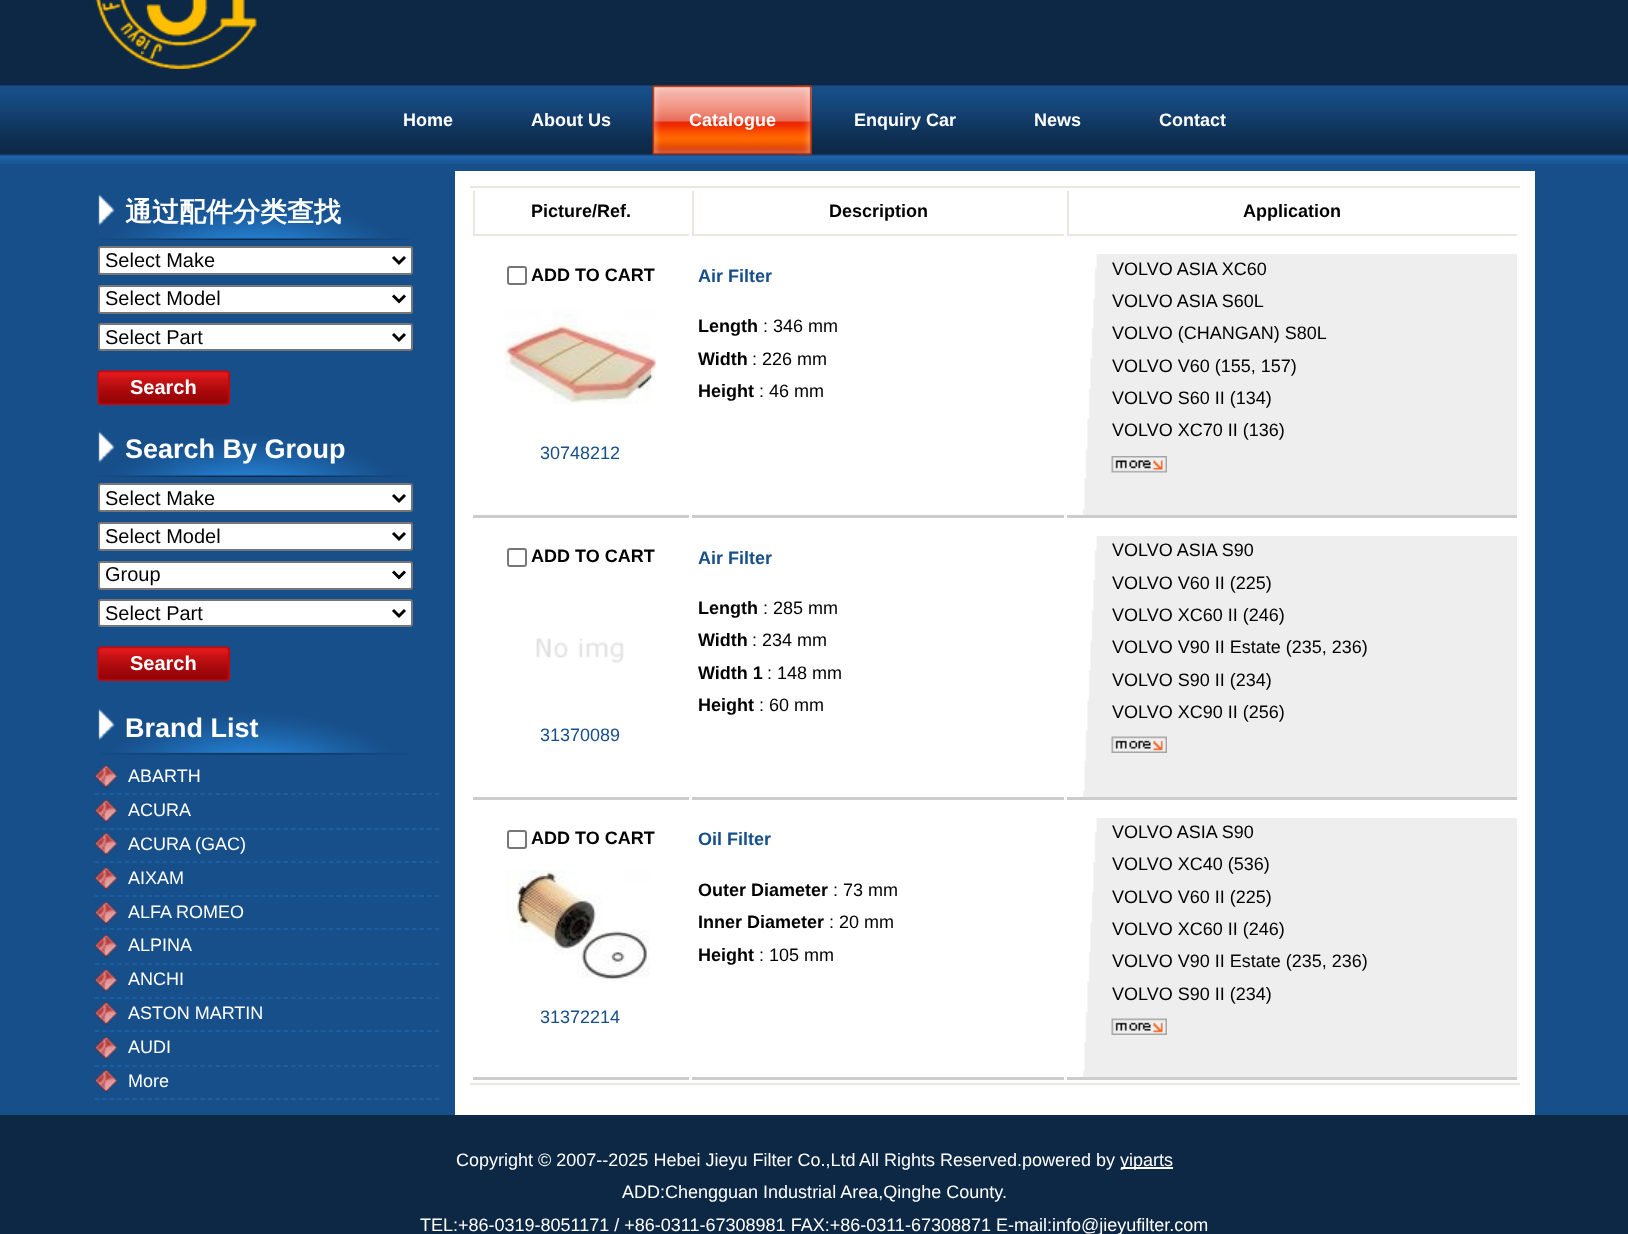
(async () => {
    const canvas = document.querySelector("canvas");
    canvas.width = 1628;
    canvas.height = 1234;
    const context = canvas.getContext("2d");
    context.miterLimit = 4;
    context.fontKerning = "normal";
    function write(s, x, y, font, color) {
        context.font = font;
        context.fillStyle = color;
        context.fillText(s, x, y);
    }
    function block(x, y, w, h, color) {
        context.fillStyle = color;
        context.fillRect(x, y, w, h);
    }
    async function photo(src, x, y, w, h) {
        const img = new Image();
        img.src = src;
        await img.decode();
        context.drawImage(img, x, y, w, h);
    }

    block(0, 0, 1628, 1234, "rgb(23, 79, 138)");
    await photo("media/1.png", 0, 0, 1628, 164);
    await photo("media/2.png", 95, 0, 162, 69);
    await photo("media/3.png", 652, 85, 160, 70);
    write("Home", 403, 126, "bold 18px Liberation Sans", "rgb(255, 255, 255)");
    write("About Us", 531, 126, "bold 18px Liberation Sans", "rgb(255, 255, 255)");
    write("Catalogue", 689, 126, "bold 18px Liberation Sans", "rgb(255, 255, 255)");
    await photo("media/4.png", 796, 85, 16, 70);
    write("Enquiry Car", 854, 126, "bold 18px Liberation Sans", "rgb(255, 255, 255)");
    write("News", 1034, 126, "bold 18px Liberation Sans", "rgb(255, 255, 255)");
    write("Contact", 1159, 126, "bold 18px Liberation Sans", "rgb(255, 255, 255)");
    await photo("media/5.png", 98, 194, 312, 46);
    write("通过配件分类查找", 125, 221, "bold 27px WenQuanYi Zen Hei", "rgb(255, 255, 255)");
    context.beginPath();
    context.roundRect(99, 247, 313, 27, 2);
    context.fill();
    context.strokeStyle = "rgb(118, 118, 118)";
    context.lineWidth = 2;
    context.stroke();
    context.beginPath();
    context.moveTo(393, 257);
    context.lineTo(399, 263);
    context.lineTo(405, 257);
    context.strokeStyle = "rgb(0, 0, 0)";
    context.lineWidth = 3;
    context.stroke();
    write("Select Make", 105, 267, "20px Liberation Sans", "rgb(0, 0, 0)");
    context.fillStyle = "rgb(255, 255, 255)";
    context.beginPath();
    context.roundRect(99, 286, 313, 27, 2);
    context.fill();
    context.strokeStyle = "rgb(118, 118, 118)";
    context.lineWidth = 2;
    context.stroke();
    context.beginPath();
    context.moveTo(393, 295.5);
    context.lineTo(399, 301.5);
    context.lineTo(405, 295.5);
    context.strokeStyle = "rgb(0, 0, 0)";
    context.lineWidth = 3;
    context.stroke();
    write("Select Model", 105, 305, "20px Liberation Sans", "rgb(0, 0, 0)");
    context.fillStyle = "rgb(255, 255, 255)";
    context.beginPath();
    context.roundRect(99, 324, 313, 26, 2);
    context.fill();
    context.strokeStyle = "rgb(118, 118, 118)";
    context.lineWidth = 2;
    context.stroke();
    context.beginPath();
    context.moveTo(393, 334);
    context.lineTo(399, 340);
    context.lineTo(405, 334);
    context.strokeStyle = "rgb(0, 0, 0)";
    context.lineWidth = 3;
    context.stroke();
    write("Select Part", 105, 344, "20px Liberation Sans", "rgb(0, 0, 0)");
    block(229, 371, 1, 34, "rgb(204, 0, 0)");
    await photo("media/6.png", 97, 370, 133, 35);
    write("Search", 130, 394, "bold 20px Liberation Sans", "rgb(255, 255, 255)");
    await photo("media/5.png", 98, 431, 312, 46);
    write("Search By Group", 125, 458, "bold 27px Liberation Sans", "rgb(255, 255, 255)");
    context.beginPath();
    context.roundRect(99, 484, 313, 27, 2);
    context.fill();
    context.strokeStyle = "rgb(118, 118, 118)";
    context.lineWidth = 2;
    context.stroke();
    context.beginPath();
    context.moveTo(393, 495);
    context.lineTo(399, 501);
    context.lineTo(405, 495);
    context.strokeStyle = "rgb(0, 0, 0)";
    context.lineWidth = 3;
    context.stroke();
    write("Select Make", 105, 505, "20px Liberation Sans", "rgb(0, 0, 0)");
    context.fillStyle = "rgb(255, 255, 255)";
    context.beginPath();
    context.roundRect(99, 523, 313, 27, 2);
    context.fill();
    context.strokeStyle = "rgb(118, 118, 118)";
    context.lineWidth = 2;
    context.stroke();
    context.beginPath();
    context.moveTo(393, 533);
    context.lineTo(399, 539);
    context.lineTo(405, 533);
    context.strokeStyle = "rgb(0, 0, 0)";
    context.lineWidth = 3;
    context.stroke();
    write("Select Model", 105, 543, "20px Liberation Sans", "rgb(0, 0, 0)");
    context.fillStyle = "rgb(255, 255, 255)";
    context.beginPath();
    context.roundRect(99, 562, 313, 27, 2);
    context.fill();
    context.strokeStyle = "rgb(118, 118, 118)";
    context.lineWidth = 2;
    context.stroke();
    context.beginPath();
    context.moveTo(393, 571.5);
    context.lineTo(399, 577.5);
    context.lineTo(405, 571.5);
    context.strokeStyle = "rgb(0, 0, 0)";
    context.lineWidth = 3;
    context.stroke();
    write("Group", 105, 581, "20px Liberation Sans", "rgb(0, 0, 0)");
    context.fillStyle = "rgb(255, 255, 255)";
    context.beginPath();
    context.roundRect(99, 600, 313, 26, 2);
    context.fill();
    context.strokeStyle = "rgb(118, 118, 118)";
    context.lineWidth = 2;
    context.stroke();
    context.beginPath();
    context.moveTo(393, 610);
    context.lineTo(399, 616);
    context.lineTo(405, 610);
    context.strokeStyle = "rgb(0, 0, 0)";
    context.lineWidth = 3;
    context.stroke();
    write("Select Part", 105, 620, "20px Liberation Sans", "rgb(0, 0, 0)");
    block(229, 647, 1, 34, "rgb(204, 0, 0)");
    await photo("media/6.png", 97, 646, 133, 35);
    write("Search", 130, 670, "bold 20px Liberation Sans", "rgb(255, 255, 255)");
    await photo("media/7.png", 98, 709, 311, 46);
    write("Brand List", 125, 737, "bold 27px Liberation Sans", "rgb(255, 255, 255)");
    await photo("media/8.png", 94, 765, 25, 24);
    context.beginPath();
    context.moveTo(94.5, 794);
    context.lineTo(439.5, 794);
    context.strokeStyle = "rgb(29, 100, 170)";
    context.lineWidth = 1.5;
    context.setLineDash([4.5, 3.06]);
    context.stroke();
    write("ABARTH", 128, 782, "18px Liberation Sans", "rgb(255, 255, 255)");
    await photo("media/9.png", 94, 799, 24, 25);
    context.beginPath();
    context.moveTo(94.5, 829);
    context.lineTo(439.5, 829);
    context.stroke();
    write("ACURA", 128, 816, "18px Liberation Sans", "rgb(255, 255, 255)");
    await photo("media/10.png", 94, 832, 24, 25);
    context.beginPath();
    context.moveTo(94.5, 862);
    context.lineTo(439.5, 862);
    context.stroke();
    write("ACURA (GAC)", 128, 850, "18px Liberation Sans", "rgb(255, 255, 255)");
    await photo("media/8.png", 94, 867, 25, 24);
    context.beginPath();
    context.moveTo(94.5, 896);
    context.lineTo(439.5, 896);
    context.stroke();
    write("AIXAM", 128, 884, "18px Liberation Sans", "rgb(255, 255, 255)");
    await photo("media/9.png", 94, 901, 24, 25);
    context.beginPath();
    context.moveTo(94.5, 929);
    context.lineTo(439.5, 929);
    context.stroke();
    write("ALFA ROMEO", 128, 918, "18px Liberation Sans", "rgb(255, 255, 255)");
    await photo("media/10.png", 94, 934, 24, 25);
    context.beginPath();
    context.moveTo(94.5, 964);
    context.lineTo(439.5, 964);
    context.stroke();
    write("ALPINA", 128, 951, "18px Liberation Sans", "rgb(255, 255, 255)");
    await photo("media/8.png", 94, 969, 25, 24);
    context.beginPath();
    context.moveTo(94.5, 998);
    context.lineTo(439.5, 998);
    context.stroke();
    write("ANCHI", 128, 985, "18px Liberation Sans", "rgb(255, 255, 255)");
    await photo("media/8.png", 94, 1002, 25, 24);
    context.beginPath();
    context.moveTo(94.5, 1031);
    context.lineTo(439.5, 1031);
    context.stroke();
    write("ASTON MARTIN", 128, 1019, "18px Liberation Sans", "rgb(255, 255, 255)");
    await photo("media/10.png", 94, 1036, 24, 25);
    context.beginPath();
    context.moveTo(94.5, 1066);
    context.lineTo(439.5, 1066);
    context.stroke();
    write("AUDI", 128, 1053, "18px Liberation Sans", "rgb(255, 255, 255)");
    await photo("media/9.png", 94, 1069, 24, 25);
    context.beginPath();
    context.moveTo(94.5, 1099);
    context.lineTo(439.5, 1099);
    context.stroke();
    write("More", 128, 1087, "18px Liberation Sans", "rgb(255, 255, 255)");
    block(455, 171, 1080, 944, "rgb(255, 255, 255)");
    block(470, 186, 1050, 2, "rgb(234, 231, 223)");
    block(470, 1083, 1050, 2, "rgb(234, 231, 223)");
    block(473, 234, 216, 2, "rgb(234, 231, 223)");
    block(473, 191, 2, 45, "rgb(234, 231, 223)");
    write("Picture/Ref.", 531, 217, "bold 18px Liberation Sans", "rgb(0, 0, 0)");
    block(692, 234, 372, 2, "rgb(234, 231, 223)");
    block(692, 191, 2, 45, "rgb(234, 231, 223)");
    write("Description", 829, 217, "bold 18px Liberation Sans", "rgb(0, 0, 0)");
    block(1067, 234, 450, 2, "rgb(234, 231, 223)");
    block(1067, 191, 2, 45, "rgb(234, 231, 223)");
    write("Application", 1243, 217, "bold 18px Liberation Sans", "rgb(0, 0, 0)");
    block(473, 515, 216, 3, "rgb(204, 204, 204)");
    context.beginPath();
    context.roundRect(508, 267, 18, 17, 2);
    context.strokeStyle = "rgb(118, 118, 118)";
    context.lineWidth = 2;
    context.setLineDash([]);
    context.stroke();
    write("ADD TO CART", 531, 281, "bold 18px Liberation Sans", "rgb(0, 0, 0)");
    await photo("media/11.png", 505, 308, 151, 97);
    write("30748212", 540, 459, "18px Liberation Sans", "rgb(23, 79, 138)");
    block(692, 515, 372, 3, "rgb(204, 204, 204)");
    write("Air Filter", 698, 282, "bold 18px Liberation Sans", "rgb(23, 79, 138)");
    write("Length", 698, 332, "bold 18px Liberation Sans", "rgb(0, 0, 0)");
    write(": 346 mm", 763, 332, "18px Liberation Sans", "rgb(0, 0, 0)");
    write("Width", 698, 365, "bold 18px Liberation Sans", "rgb(0, 0, 0)");
    write(": 226 mm", 752, 365, "18px Liberation Sans", "rgb(0, 0, 0)");
    write("Height", 698, 397, "bold 18px Liberation Sans", "rgb(0, 0, 0)");
    write(": 46 mm", 759, 397, "18px Liberation Sans", "rgb(0, 0, 0)");
    block(1096, 254, 421, 261, "rgb(238, 238, 238)");
    await photo("media/12.png", 1067, 254, 30, 261);
    block(1067, 515, 450, 3, "rgb(204, 204, 204)");
    write("VOLVO ASIA XC60", 1112, 275, "18px Liberation Sans", "rgb(0, 0, 0)");
    write("VOLVO ASIA S60L", 1112, 307, "18px Liberation Sans", "rgb(0, 0, 0)");
    write("VOLVO (CHANGAN) S80L", 1112, 339, "18px Liberation Sans", "rgb(0, 0, 0)");
    write("VOLVO V60 (155, 157)", 1112, 372, "18px Liberation Sans", "rgb(0, 0, 0)");
    write("VOLVO S60 II (134)", 1112, 404, "18px Liberation Sans", "rgb(0, 0, 0)");
    write("VOLVO XC70 II (136)", 1112, 436, "18px Liberation Sans", "rgb(0, 0, 0)");
    await photo("media/13.png", 1111, 456, 56, 17);
    block(473, 797, 216, 3, "rgb(204, 204, 204)");
    context.beginPath();
    context.roundRect(508, 549, 18, 17, 2);
    context.stroke();
    write("ADD TO CART", 531, 562, "bold 18px Liberation Sans", "rgb(0, 0, 0)");
    await photo("media/14.png", 536, 638, 88, 25);
    write("31370089", 540, 741, "18px Liberation Sans", "rgb(23, 79, 138)");
    block(692, 797, 372, 3, "rgb(204, 204, 204)");
    write("Air Filter", 698, 564, "bold 18px Liberation Sans", "rgb(23, 79, 138)");
    write("Length", 698, 614, "bold 18px Liberation Sans", "rgb(0, 0, 0)");
    write(": 285 mm", 763, 614, "18px Liberation Sans", "rgb(0, 0, 0)");
    write("Width", 698, 646, "bold 18px Liberation Sans", "rgb(0, 0, 0)");
    write(": 234 mm", 752, 646, "18px Liberation Sans", "rgb(0, 0, 0)");
    write("Width 1", 698, 679, "bold 18px Liberation Sans", "rgb(0, 0, 0)");
    write(": 148 mm", 767, 679, "18px Liberation Sans", "rgb(0, 0, 0)");
    write("Height", 698, 711, "bold 18px Liberation Sans", "rgb(0, 0, 0)");
    write(": 60 mm", 759, 711, "18px Liberation Sans", "rgb(0, 0, 0)");
    block(1096, 536, 421, 261, "rgb(238, 238, 238)");
    await photo("media/12.png", 1067, 536, 30, 261);
    block(1067, 797, 450, 3, "rgb(204, 204, 204)");
    write("VOLVO ASIA S90", 1112, 556, "18px Liberation Sans", "rgb(0, 0, 0)");
    write("VOLVO V60 II (225)", 1112, 589, "18px Liberation Sans", "rgb(0, 0, 0)");
    write("VOLVO XC60 II (246)", 1112, 621, "18px Liberation Sans", "rgb(0, 0, 0)");
    write("VOLVO V90 II Estate (235, 236)", 1112, 653, "18px Liberation Sans", "rgb(0, 0, 0)");
    write("VOLVO S90 II (234)", 1112, 686, "18px Liberation Sans", "rgb(0, 0, 0)");
    write("VOLVO XC90 II (256)", 1112, 718, "18px Liberation Sans", "rgb(0, 0, 0)");
    await photo("media/15.png", 1111, 736, 56, 17);
    block(473, 1077, 216, 3, "rgb(204, 204, 204)");
    context.beginPath();
    context.roundRect(508, 831, 18, 17, 2);
    context.stroke();
    write("ADD TO CART", 531, 844, "bold 18px Liberation Sans", "rgb(0, 0, 0)");
    await photo("media/16.png", 506, 870, 144, 111);
    write("31372214", 540, 1023, "18px Liberation Sans", "rgb(23, 79, 138)");
    block(692, 1077, 372, 3, "rgb(204, 204, 204)");
    write("Oil Filter", 698, 845, "bold 18px Liberation Sans", "rgb(23, 79, 138)");
    write("Outer Diameter", 698, 896, "bold 18px Liberation Sans", "rgb(0, 0, 0)");
    write(": 73 mm", 833, 896, "18px Liberation Sans", "rgb(0, 0, 0)");
    write("Inner Diameter", 698, 928, "bold 18px Liberation Sans", "rgb(0, 0, 0)");
    write(": 20 mm", 829, 928, "18px Liberation Sans", "rgb(0, 0, 0)");
    write("Height", 698, 961, "bold 18px Liberation Sans", "rgb(0, 0, 0)");
    write(": 105 mm", 759, 961, "18px Liberation Sans", "rgb(0, 0, 0)");
    block(1096, 818, 421, 259, "rgb(238, 238, 238)");
    await photo("media/17.png", 1067, 818, 30, 259);
    block(1067, 1077, 450, 3, "rgb(204, 204, 204)");
    write("VOLVO ASIA S90", 1112, 838, "18px Liberation Sans", "rgb(0, 0, 0)");
    write("VOLVO XC40 (536)", 1112, 870, "18px Liberation Sans", "rgb(0, 0, 0)");
    write("VOLVO V60 II (225)", 1112, 903, "18px Liberation Sans", "rgb(0, 0, 0)");
    write("VOLVO XC60 II (246)", 1112, 935, "18px Liberation Sans", "rgb(0, 0, 0)");
    write("VOLVO V90 II Estate (235, 236)", 1112, 967, "18px Liberation Sans", "rgb(0, 0, 0)");
    write("VOLVO S90 II (234)", 1112, 1000, "18px Liberation Sans", "rgb(0, 0, 0)");
    await photo("media/15.png", 1111, 1018, 56, 17);
    block(0, 1115, 1628, 119, "rgb(13, 40, 69)");
    write("Copyright © 2007--2025 Hebei Jieyu Filter Co.,Ltd", 456, 1166, "18px Liberation Sans", "rgb(255, 255, 255)");
    write("All Rights Reserved.powered by", 859, 1166, "18px Liberation Sans", "rgb(255, 255, 255)");
    block(1121, 1167, 52, 2, "rgb(255, 255, 255)");
    write("yiparts", 1120, 1166, "18px Liberation Sans", "rgb(255, 255, 255)");
    write("ADD:Chengguan Industrial Area,Qinghe County.", 622, 1198, "18px Liberation Sans", "rgb(255, 255, 255)");
    write("TEL:+86-0319-8051171 / +86-0311-67308981 FAX:+86-0311-67308871 E-mail:info@jieyufilter.com", 420, 1231, "18px Liberation Sans", "rgb(255, 255, 255)");
})();
